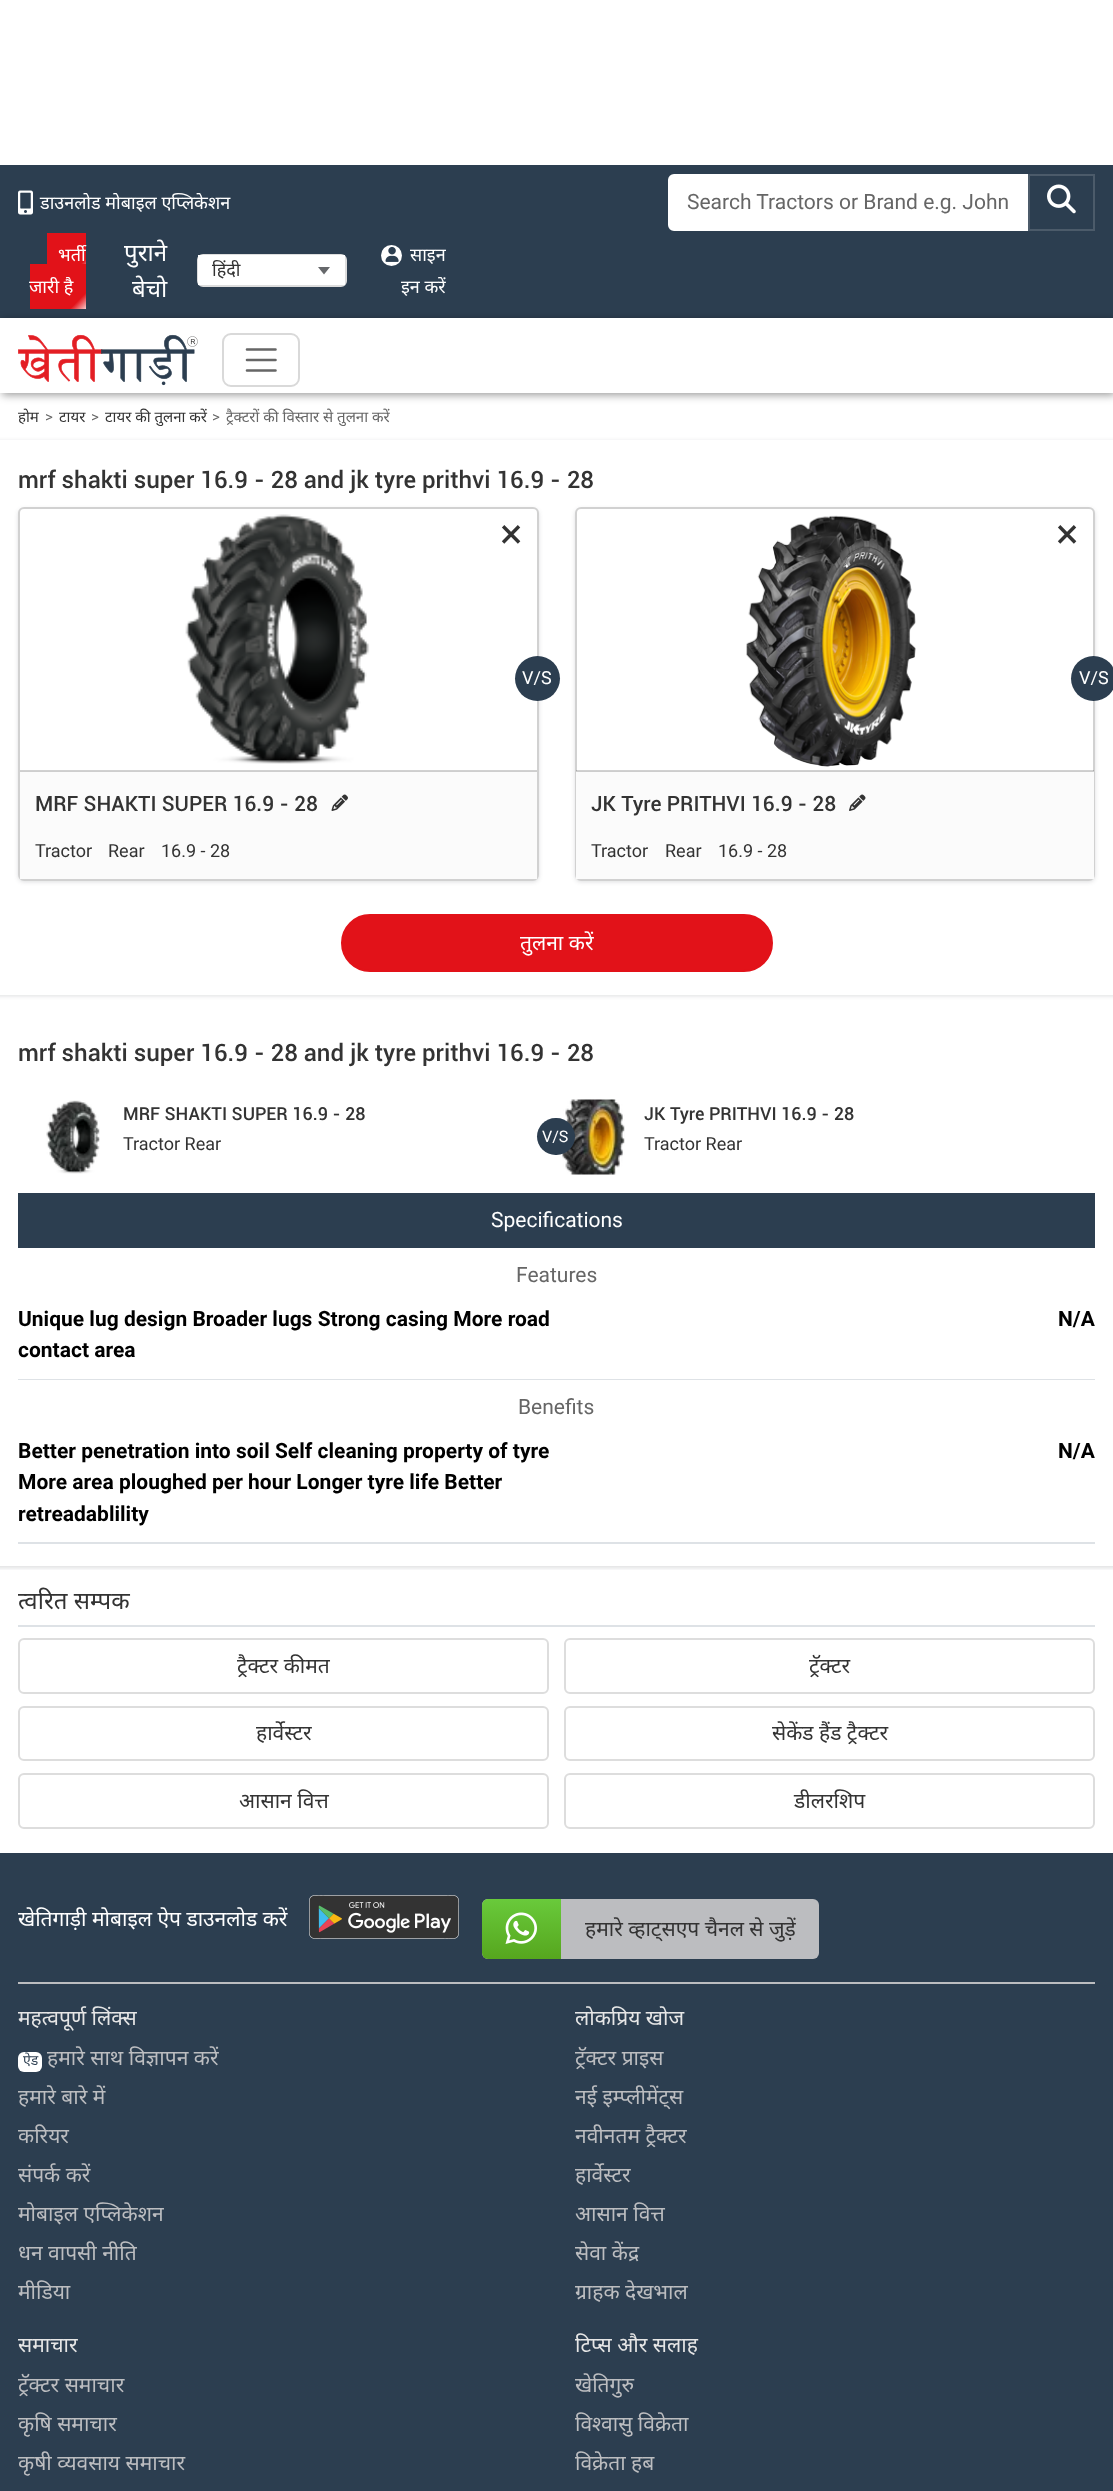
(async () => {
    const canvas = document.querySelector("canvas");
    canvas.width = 1113;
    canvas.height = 2491;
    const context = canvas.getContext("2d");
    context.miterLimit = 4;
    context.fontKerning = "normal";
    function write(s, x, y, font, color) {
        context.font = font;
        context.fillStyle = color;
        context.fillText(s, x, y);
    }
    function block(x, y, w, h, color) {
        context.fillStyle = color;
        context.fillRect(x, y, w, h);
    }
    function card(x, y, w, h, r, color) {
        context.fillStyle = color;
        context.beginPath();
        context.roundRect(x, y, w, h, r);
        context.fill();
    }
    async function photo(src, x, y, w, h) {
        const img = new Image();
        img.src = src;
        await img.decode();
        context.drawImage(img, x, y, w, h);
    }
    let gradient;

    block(0, 0, 1113, 2491, "rgb(255, 255, 255)");
    block(0, 165, 1113, 153, "rgb(44, 62, 80)");
    await photo("media/1.png", 18, 190, 15, 25);
    write("डाउनलोड मोबाइल एप्लिकेशन", 40, 209, "18px Noto Sans", "rgb(255, 255, 255)");
    context.beginPath();
    context.roundRect(669, 175, 359, 55, [5, 0, 0, 5]);
    context.fill();
    context.strokeStyle = "rgb(255, 255, 255)";
    context.lineWidth = 2;
    context.stroke();
    write("Search Tractors or Brand e.g. John", 687, 209, "21px Roboto", "rgb(102, 102, 102)");
    context.strokeStyle = "rgb(76, 91, 106)";
    context.strokeRect(1029, 175, 65, 55);
    await photo("media/2.png", 1047, 184, 29, 30);
    gradient = context.createLinearGradient(65, 215, 146, 296);
    gradient.addColorStop(0, "rgb(226, 18, 25)");
    gradient.addColorStop(0.4, "rgb(226, 18, 25)");
    gradient.addColorStop(0.5, "rgb(255, 255, 255)");
    gradient.addColorStop(0.6, "rgb(226, 18, 25)");
    gradient.addColorStop(1, "rgb(226, 18, 25)");
    context.fillStyle = gradient;
    context.fillRect(47, 233, 39, 31);
    write("भर्ती", 58, 261, "18px Noto Sans", "rgb(255, 255, 255)");
    gradient = context.createLinearGradient(60, 234, 166, 339);
    gradient.addColorStop(0, "rgb(226, 18, 25)");
    gradient.addColorStop(0.4, "rgb(226, 18, 25)");
    gradient.addColorStop(0.5, "rgb(255, 255, 255)");
    gradient.addColorStop(0.6, "rgb(226, 18, 25)");
    gradient.addColorStop(1, "rgb(226, 18, 25)");
    context.fillStyle = gradient;
    context.fillRect(30, 264, 56, 45);
    write("जारी है", 29, 293, "18px Noto Sans", "rgb(255, 255, 255)");
    write("पुराने", 124, 261, "24px Noto Sans", "rgb(255, 255, 255)");
    write("बेचो", 132, 297, "24px Noto Sans", "rgb(255, 255, 255)");
    context.beginPath();
    context.roundRect(198, 255, 148, 31, 5);
    context.strokeStyle = "rgb(221, 221, 221)";
    context.stroke();
    block(198, 255, 147, 30, "rgb(255, 255, 255)");
    write("हिंदी", 212, 276, "18px Noto Sans", "rgb(51, 51, 51)");
    context.fillStyle = "rgb(102, 104, 107)";
    context.beginPath();
    context.moveTo(318, 267);
    context.lineTo(330, 267);
    context.lineTo(324, 274.5);
    context.closePath();
    context.fill();
    context.fillStyle = "rgb(255, 255, 255)";
    context.beginPath();
    context.arc(391.5, 255.5, 10.5, 0, Math.PI * 2);
    context.fill();
    await photo("media/3.png", 385, 246, 14, 16);
    write("साइन", 410, 261, "18px Noto Sans", "rgb(255, 255, 255)");
    write("इन करें", 401, 293, "18px Noto Sans", "rgb(255, 255, 255)");
    context.save();
    context.beginPath();
    context.moveTo(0, 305);
    context.lineTo(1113, 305);
    context.lineTo(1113, 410);
    context.lineTo(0, 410);
    context.closePath();
    context.moveTo(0, 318);
    context.lineTo(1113, 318);
    context.lineTo(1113, 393);
    context.lineTo(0, 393);
    context.closePath();
    context.clip("evenodd");
    context.fillStyle = "rgba(0, 0, 0, 0.4)";
    context.filter = "blur(4.5px)";
    context.beginPath();
    context.rect(2, 320, 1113, 75);
    context.fill();
    context.filter = "none";
    context.restore();
    await photo("media/4.png", 18, 334, 180, 52);
    context.beginPath();
    context.roundRect(223, 334, 76, 52, 8);
    context.strokeStyle = "rgb(217, 217, 217)";
    context.stroke();
    context.beginPath();
    context.moveTo(247, 349.5);
    context.lineTo(275.5, 349.5);
    context.moveTo(247, 360);
    context.lineTo(275.5, 360);
    context.moveTo(247, 370.5);
    context.lineTo(275.5, 370.5);
    context.strokeStyle = "rgb(102, 102, 102)";
    context.lineWidth = 2.6;
    context.lineCap = "round";
    context.stroke();
    context.save();
    context.beginPath();
    context.rect(18, 393, 1077, 47);
    context.clip();
    write("होम", 18, 422, "15px Noto Sans", "rgb(51, 51, 51)");
    context.restore();
    write(">", 45, 422, "15px Roboto", "rgb(102, 102, 102)");
    write("टायर", 59, 422, "15px Noto Sans", "rgb(51, 51, 51)");
    write(">", 91, 422, "15px Roboto", "rgb(102, 102, 102)");
    write("टायर की तुलना करें", 105, 422, "15px Noto Sans", "rgb(51, 51, 51)");
    write(">", 212, 422, "15px Roboto", "rgb(102, 102, 102)");
    write("ट्रैक्टरों की विस्तार से तुलना करें", 226, 422, "15px Noto Sans", "rgb(102, 102, 102)");
    context.fillStyle = "rgba(36, 39, 44, 0.15)";
    context.filter = "blur(2px)";
    context.beginPath();
    context.rect(-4, 441, 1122, 555);
    context.fill();
    context.filter = "none";
    block(0, 440, 1113, 555, "rgb(255, 255, 255)");
    write("mrf shakti super 16.9 - 28 and jk tyre prithvi 16.9 - 28", 18, 488, "500 24px Roboto", "rgb(51, 51, 51)");
    context.fillStyle = "rgba(36, 39, 44, 0.15)";
    context.filter = "blur(2px)";
    context.beginPath();
    context.roundRect(18, 509, 521, 373, 6);
    context.fill();
    context.filter = "none";
    card(18, 507, 521, 374, 6, "rgb(255, 255, 255)");
    block(20, 770, 517, 1, "rgb(209, 209, 209)");
    context.beginPath();
    context.roundRect(19, 508, 519, 372, 5);
    context.strokeStyle = "rgba(0, 0, 0, 0.18)";
    context.lineWidth = 2;
    context.stroke();
    await photo("media/5.png", 185, 514, 185, 250);
    write("×", 500, 548, "42px Roboto", "rgb(51, 51, 51)");
    context.fillStyle = "rgb(44, 62, 80)";
    context.beginPath();
    context.arc(537.5, 678.5, 22.5, 0, Math.PI * 2);
    context.fill();
    write("V/S", 522, 684, "18px Roboto", "rgb(255, 255, 255)");
    block(20, 772, 517, 107, "rgb(251, 251, 251)");
    block(20, 771, 517, 1, "rgb(206, 206, 206)");
    write("MRF SHAKTI SUPER 16.9 - 28", 35, 811, "500 21px Roboto", "rgb(51, 51, 51)");
    await photo("media/6.png", 331, 794, 17, 17);
    write("Tractor", 35, 857, "18px Roboto", "rgb(51, 51, 51)");
    write("Rear", 108, 857, "18px Roboto", "rgb(51, 51, 51)");
    write("16.9 - 28", 161, 857, "18px Roboto", "rgb(51, 51, 51)");
    context.fillStyle = "rgba(36, 39, 44, 0.15)";
    context.filter = "blur(2px)";
    context.beginPath();
    context.roundRect(575, 509, 520, 373, 6);
    context.fill();
    context.filter = "none";
    card(575, 507, 520, 374, 6, "rgb(255, 255, 255)");
    context.beginPath();
    context.roundRect(576, 508, 518, 372, 5);
    context.stroke();
    block(576, 771, 518, 108, "rgb(251, 251, 251)");
    block(576, 770, 518, 2, "rgba(0, 0, 0, 0.18)");
    await photo("media/7.png", 746, 515, 170, 252);
    write("×", 1056, 548, "42px Roboto", "rgb(51, 51, 51)");
    context.fillStyle = "rgb(44, 62, 80)";
    context.beginPath();
    context.arc(1093.5, 678.5, 22.5, 0, Math.PI * 2);
    context.fill();
    write("V/S", 1079, 684, "18px Roboto", "rgb(255, 255, 255)");
    write("JK Tyre PRITHVI 16.9 - 28", 591, 811, "500 21px Roboto", "rgb(51, 51, 51)");
    await photo("media/8.png", 849, 794, 17, 17);
    write("Tractor", 591, 857, "18px Roboto", "rgb(51, 51, 51)");
    write("Rear", 665, 857, "18px Roboto", "rgb(51, 51, 51)");
    write("16.9 - 28", 718, 857, "18px Roboto", "rgb(51, 51, 51)");
    context.fillStyle = "rgb(226, 18, 25)";
    context.beginPath();
    context.roundRect(342, 915, 430, 56, 28);
    context.fill();
    context.strokeStyle = "rgb(226, 18, 25)";
    context.stroke();
    write("तुलना करें", 520, 950, "21px Noto Sans", "rgb(255, 255, 255)");
    context.save();
    context.beginPath();
    context.rect(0, 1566, 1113, 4);
    context.clip();
    context.fillStyle = "rgba(36, 39, 44, 0.15)";
    context.filter = "blur(2px)";
    context.beginPath();
    context.rect(-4, 1014, 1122, 554);
    context.fill();
    context.filter = "none";
    context.restore();
    write("mrf shakti super 16.9 - 28 and jk tyre prithvi 16.9 - 28", 18, 1061, "500 24px Roboto", "rgb(51, 51, 51)");
    await photo("media/9.png", 46, 1100, 54, 74);
    write("MRF SHAKTI SUPER 16.9 - 28", 123, 1120, "500 18px Roboto", "rgb(51, 51, 51)");
    write("Tractor Rear", 123, 1150, "18px Roboto", "rgb(51, 51, 51)");
    await photo("media/10.png", 562, 1099, 63, 76);
    card(537, 1118, 38, 37, 18.5, "rgb(44, 62, 80)");
    write("V/S", 542, 1142, "16px Roboto", "rgb(255, 255, 255)");
    write("JK Tyre PRITHVI 16.9 - 28", 644, 1120, "500 18px Roboto", "rgb(51, 51, 51)");
    write("Tractor Rear", 644, 1150, "18px Roboto", "rgb(51, 51, 51)");
    block(18, 1193, 1077, 55, "rgb(44, 62, 80)");
    write("Specifications", 491, 1227, "21px Roboto", "rgb(255, 255, 255)");
    write("Features", 516, 1282, "21px Roboto", "rgb(102, 102, 102)");
    block(18, 1379, 1077, 1, "rgb(222, 226, 230)");
    write("Unique lug design Broader lugs Strong casing More road", 18, 1326, "bold 21px Roboto", "rgb(0, 0, 0)");
    write("contact area", 18, 1357, "bold 21px Roboto", "rgb(0, 0, 0)");
    write("N/A", 1058, 1326, "bold 21px Roboto", "rgb(0, 0, 0)");
    write("Benefits", 518, 1414, "21px Roboto", "rgb(102, 102, 102)");
    block(18, 1542, 1077, 2, "rgb(222, 226, 230)");
    write("Better penetration into soil Self cleaning property of tyre", 18, 1458, "bold 21px Roboto", "rgb(0, 0, 0)");
    write("More area ploughed per hour Longer tyre life Better", 18, 1489, "bold 21px Roboto", "rgb(0, 0, 0)");
    write("retreadablility", 18, 1521, "bold 21px Roboto", "rgb(0, 0, 0)");
    write("N/A", 1058, 1458, "bold 21px Roboto", "rgb(0, 0, 0)");
    block(18, 1625, 1077, 2, "rgb(222, 226, 230)");
    write("त्वरित सम्पक", 18, 1609, "24px Noto Sans", "rgb(51, 51, 51)");
    context.beginPath();
    context.roundRect(19, 1639, 529, 54, 5);
    context.strokeStyle = "rgb(221, 221, 221)";
    context.stroke();
    write("ट्रैक्टर कीमत", 237, 1673, "21px Noto Sans", "rgb(51, 51, 51)");
    context.beginPath();
    context.roundRect(565, 1639, 529, 54, 5);
    context.stroke();
    write("ट्रॅक्टर", 809, 1673, "21px Noto Sans", "rgb(51, 51, 51)");
    context.beginPath();
    context.roundRect(19, 1707, 529, 53, 5);
    context.stroke();
    write("हार्वेस्टर", 256, 1740, "21px Noto Sans", "rgb(51, 51, 51)");
    context.beginPath();
    context.roundRect(565, 1707, 529, 53, 5);
    context.stroke();
    write("सेकेंड हैंड ट्रैक्टर", 772, 1740, "21px Noto Sans", "rgb(51, 51, 51)");
    context.beginPath();
    context.roundRect(19, 1774, 529, 54, 5);
    context.stroke();
    write("आसान वित्त", 239, 1808, "21px Noto Sans", "rgb(51, 51, 51)");
    context.beginPath();
    context.roundRect(565, 1774, 529, 54, 5);
    context.stroke();
    write("डीलरशिप", 794, 1808, "21px Noto Sans", "rgb(51, 51, 51)");
    block(0, 1853, 1113, 638, "rgb(44, 62, 80)");
    block(18, 1982, 1077, 2, "rgb(188, 189, 192)");
    write("खेतिगाड़ी मोबाइल ऐप डाउनलोड करें", 18, 1926, "21px Noto Sans", "rgb(255, 255, 255)");
    await photo("media/11.png", 309, 1895, 150, 44);
    card(482, 1899, 337, 60, 6, "rgb(188, 189, 192)");
    gradient = context.createLinearGradient(521, 1899, 521, 1959);
    gradient.addColorStop(0, "rgb(105, 202, 59)");
    gradient.addColorStop(1, "rgb(86, 166, 30)");
    context.fillStyle = gradient;
    context.beginPath();
    context.roundRect(482, 1899, 79, 60, [6, 0, 0, 6]);
    context.fill();
    await photo("media/12.png", 505, 1912, 32, 32);
    write("हमारे व्हाट्सएप चैनल से जुड़ें", 585, 1936, "21px Noto Sans", "rgb(51, 51, 51)");
    write("महत्वपूर्ण लिंक्स", 18, 2025, "21px Noto Sans", "rgb(230, 230, 230)");
    card(18, 2052, 24, 20, 6, "rgb(255, 255, 255)");
    write("ऐड", 23, 2065, "14px Noto Sans", "rgb(44, 62, 80)");
    write("हमारे साथ विज्ञापन करें", 47, 2065, "21px Noto Sans", "rgb(188, 189, 192)");
    write("हमारे बारे में", 18, 2104, "21px Noto Sans", "rgb(188, 189, 192)");
    write("करियर", 18, 2143, "21px Noto Sans", "rgb(188, 189, 192)");
    write("संपर्क करें", 18, 2182, "21px Noto Sans", "rgb(188, 189, 192)");
    write("मोबाइल एप्लिकेशन", 18, 2221, "21px Noto Sans", "rgb(188, 189, 192)");
    write("धन वापसी नीति", 18, 2260, "21px Noto Sans", "rgb(188, 189, 192)");
    write("मीडिया", 18, 2299, "21px Noto Sans", "rgb(188, 189, 192)");
    write("लोकप्रिय खोज", 575, 2025, "21px Noto Sans", "rgb(230, 230, 230)");
    write("ट्रॅक्टर प्राइस", 575, 2065, "21px Noto Sans", "rgb(188, 189, 192)");
    write("नई इम्प्लीमेंट्स", 575, 2104, "21px Noto Sans", "rgb(188, 189, 192)");
    write("नवीनतम ट्रैक्टर", 575, 2143, "21px Noto Sans", "rgb(188, 189, 192)");
    write("हार्वेस्टर", 575, 2182, "21px Noto Sans", "rgb(188, 189, 192)");
    write("आसान वित्त", 575, 2221, "21px Noto Sans", "rgb(188, 189, 192)");
    write("सेवा केंद्र", 575, 2260, "21px Noto Sans", "rgb(188, 189, 192)");
    write("ग्राहक देखभाल", 575, 2299, "21px Noto Sans", "rgb(188, 189, 192)");
    write("समाचार", 18, 2352, "21px Noto Sans", "rgb(230, 230, 230)");
    write("ट्रॅक्टर समाचार", 18, 2392, "21px Noto Sans", "rgb(188, 189, 192)");
    write("कृषि समाचार", 18, 2431, "21px Noto Sans", "rgb(188, 189, 192)");
    write("कृषी व्यवसाय समाचार", 18, 2470, "21px Noto Sans", "rgb(188, 189, 192)");
    write("टिप्स और सलाह", 575, 2352, "21px Noto Sans", "rgb(230, 230, 230)");
    write("खेतिगुरु", 575, 2392, "21px Noto Sans", "rgb(188, 189, 192)");
    write("विश्वासु विक्रेता", 575, 2431, "21px Noto Sans", "rgb(188, 189, 192)");
    write("विक्रेता हब", 575, 2470, "21px Noto Sans", "rgb(188, 189, 192)");
})();
